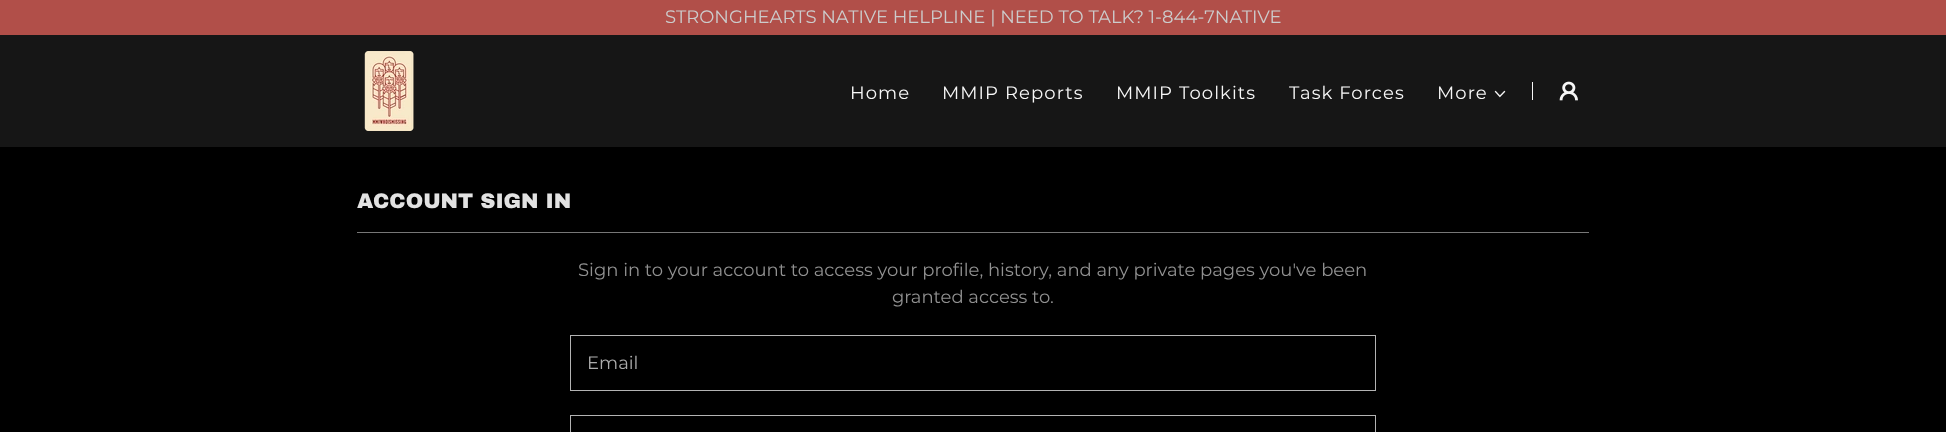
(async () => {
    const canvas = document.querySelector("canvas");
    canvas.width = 1946;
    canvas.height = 432;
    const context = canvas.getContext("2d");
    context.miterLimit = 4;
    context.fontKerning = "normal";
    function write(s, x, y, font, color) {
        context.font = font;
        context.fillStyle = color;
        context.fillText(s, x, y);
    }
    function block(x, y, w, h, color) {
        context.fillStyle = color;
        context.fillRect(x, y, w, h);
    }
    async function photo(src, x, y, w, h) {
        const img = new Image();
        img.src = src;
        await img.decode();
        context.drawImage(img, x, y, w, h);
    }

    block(0, 0, 1946, 432, "rgb(0, 0, 0)");
    block(0, 35, 1946, 112, "rgb(22, 22, 22)");
    block(0, 0, 1946, 35, "rgb(177, 79, 73)");
    write("STRONGHEARTS NATIVE HELPLINE | NEED TO TALK? 1-844-7NATIVE", 665, 23, "18px Montserrat", "rgb(204, 204, 204)");
    await photo("media/1.png", 364, 51, 50, 80);
    context.letterSpacing = "1.1px";
    write("Home", 850, 99, "18px Montserrat", "rgb(247, 247, 247)");
    write("MMIP Reports", 942, 99, "18px Montserrat", "rgb(247, 247, 247)");
    write("MMIP Toolkits", 1116, 99, "18px Montserrat", "rgb(247, 247, 247)");
    write("Task Forces", 1289, 99, "18px Montserrat", "rgb(247, 247, 247)");
    write("More", 1437, 99, "18px Montserrat", "rgb(247, 247, 247)");
    await photo("media/2.png", 1494, 90, 12, 8);
    block(1532, 82, 1, 18, "rgb(247, 247, 247)");
    await photo("media/3.png", 1559, 81, 19, 20);
    context.letterSpacing = "0px";
    write("ACCOUNT SIGN IN", 357, 208, "900 21px Archivo Black", "rgb(226, 226, 226)");
    block(357, 232, 1232, 1, "rgb(119, 119, 119)");
    write("Sign in to your account to access your profile, history, and any private pages you've been", 578, 276, "18px Montserrat", "rgb(145, 145, 145)");
    write("granted access to.", 892, 303, "18px Montserrat", "rgb(145, 145, 145)");
    context.strokeStyle = "rgb(179, 179, 179)";
    context.strokeRect(570.5, 335.5, 805, 55);
    write("Email", 587, 369, "18px Montserrat", "rgb(171, 171, 171)");
    context.strokeRect(570.5, 415.5, 805, 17);
})();
